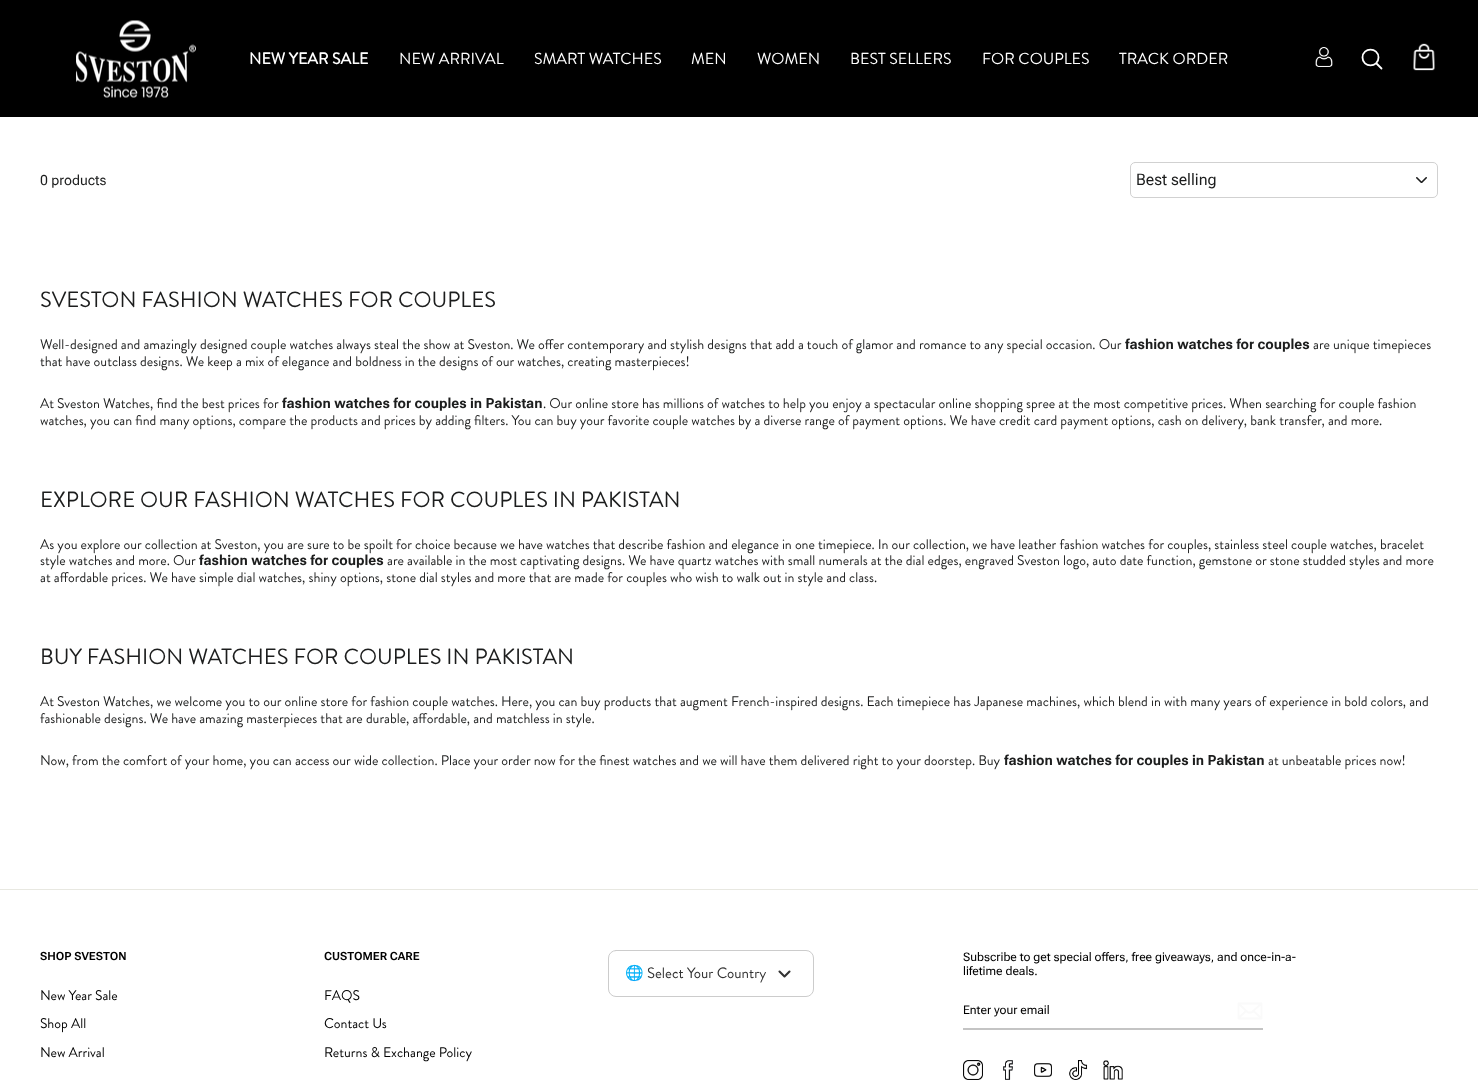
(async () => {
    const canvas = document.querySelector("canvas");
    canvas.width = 1478;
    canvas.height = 1081;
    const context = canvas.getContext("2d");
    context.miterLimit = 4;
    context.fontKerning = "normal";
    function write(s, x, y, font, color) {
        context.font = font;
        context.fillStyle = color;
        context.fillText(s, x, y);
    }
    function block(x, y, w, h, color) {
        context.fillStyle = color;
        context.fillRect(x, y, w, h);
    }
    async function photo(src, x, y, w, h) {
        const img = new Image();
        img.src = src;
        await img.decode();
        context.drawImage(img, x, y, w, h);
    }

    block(0, 0, 1478, 1081, "rgb(255, 255, 255)");
    block(0, 0, 1478, 117, "rgb(0, 0, 0)");
    await photo("media/1.png", 76, 20, 120, 78);
    write("NEW YEAR SALE", 249, 64, "bold 16px Brandon Grotesque", "rgb(255, 255, 255)");
    write("NEW ARRIVAL", 399, 64, "16px Brandon Grotesque", "rgb(255, 255, 255)");
    write("SMART WATCHES", 534, 64, "16px Brandon Grotesque", "rgb(255, 255, 255)");
    write("MEN", 691, 64, "16px Brandon Grotesque", "rgb(255, 255, 255)");
    write("WOMEN", 757, 64, "16px Brandon Grotesque", "rgb(255, 255, 255)");
    write("BEST SELLERS", 850, 64, "16px Brandon Grotesque", "rgb(255, 255, 255)");
    write("FOR COUPLES", 982, 64, "16px Brandon Grotesque", "rgb(255, 255, 255)");
    write("TRACK ORDER", 1119, 64, "16px Brandon Grotesque", "rgb(255, 255, 255)");
    await photo("media/2.png", 1315, 47, 18, 20);
    context.beginPath();
    context.moveTo(1378.5, 57.5);
    context.bezierCurveTo(1378.5, 68, 1362.5, 68, 1362.5, 57.5);
    context.bezierCurveTo(1362.5, 47, 1378.5, 47, 1378.5, 57.5);
    context.closePath();
    context.moveTo(1381.5, 68.5);
    context.lineTo(1376.5, 63.5);
    context.strokeStyle = "rgb(255, 255, 255)";
    context.lineWidth = 1.8;
    context.lineCap = "round";
    context.lineJoin = "round";
    context.stroke();
    await photo("media/3.png", 1413, 43, 22, 28);
    write("0 products", 40, 185, "14px Roboto Flex", "rgb(28, 29, 29)");
    await photo("media/4.png", 1416, 177, 11, 6);
    context.beginPath();
    context.roundRect(1130.5, 162.5, 307, 35, 4.5);
    context.strokeStyle = "rgb(209, 209, 209)";
    context.lineWidth = 1;
    context.lineJoin = "miter";
    context.stroke();
    write("Best selling", 1136, 185, "16px 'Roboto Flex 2'", "rgb(28, 29, 29)");
    write("SVESTON FASHION WATCHES FOR COUPLES", 40, 307, "22px Brandon Grotesque", "rgb(28, 29, 29)");
    write("Well-designed and amazingly designed couple watches always steal the show at Sveston. We offer contemporary and stylish designs that add a touch of glamor and romance to any special occasion. Our", 40, 349, "14px Brandon Grotesque", "rgb(28, 29, 29)");
    write("fashion watches for couples", 1125, 349, "bold 14px Roboto Flex", "rgb(28, 29, 29)");
    write("are unique timepieces", 1313, 349, "14px Brandon Grotesque", "rgb(28, 29, 29)");
    write("that have outclass designs. We keep a mix of elegance and boldness in the designs of our watches, creating masterpieces!", 40, 366, "14px Brandon Grotesque", "rgb(28, 29, 29)");
    write("At Sveston Watches, find the best prices for", 40, 408, "14px Brandon Grotesque", "rgb(28, 29, 29)");
    write("fashion watches for couples in Pakistan", 282, 408, "bold 14px Roboto Flex", "rgb(28, 29, 29)");
    write(". Our online store has millions of watches to help you enjoy a spectacular online shopping spree at the most competitive prices. When searching for couple fashion", 543, 408, "14px Brandon Grotesque", "rgb(28, 29, 29)");
    write("watches, you can find many options, compare the products and prices by adding filters. You can buy your favorite couple watches by a diverse range of payment options. We have credit card payment options, cash on delivery, bank transfer, and more.", 40, 425, "14px Brandon Grotesque", "rgb(28, 29, 29)");
    write("EXPLORE OUR FASHION WATCHES FOR COUPLES IN PAKISTAN", 40, 507, "22px Brandon Grotesque", "rgb(28, 29, 29)");
    write("As you explore our collection at Sveston, you are sure to be spoilt for choice because we have watches that describe fashion and elegance in one timepiece. In our collection, we have leather fashion watches for couples, stainless steel couple watches, bracelet", 40, 549, "14px Brandon Grotesque", "rgb(28, 29, 29)");
    write("style watches and more. Our", 40, 565, "14px Brandon Grotesque", "rgb(28, 29, 29)");
    write("fashion watches for couples", 199, 565, "bold 14px Roboto Flex", "rgb(28, 29, 29)");
    write("are available in the most captivating designs. We have quartz watches with small numerals at the dial edges, engraved Sveston logo, auto date function, gemstone or stone studded styles and more", 387, 565, "14px Brandon Grotesque", "rgb(28, 29, 29)");
    write("at affordable prices. We have simple dial watches, shiny options, stone dial styles and more that are made for couples who wish to walk out in style and class.", 40, 582, "14px Brandon Grotesque", "rgb(28, 29, 29)");
    write("BUY FASHION WATCHES FOR COUPLES IN PAKISTAN", 40, 664, "22px Brandon Grotesque", "rgb(28, 29, 29)");
    write("At Sveston Watches, we welcome you to our online store for fashion couple watches. Here, you can buy products that augment French-inspired designs. Each timepiece has Japanese machines, which blend in with many years of experience in bold colors, and", 40, 706, "14px Brandon Grotesque", "rgb(28, 29, 29)");
    write("fashionable designs. We have amazing masterpieces that are durable, affordable, and matchless in style.", 40, 723, "14px Brandon Grotesque", "rgb(28, 29, 29)");
    write("Now, from the comfort of your home, you can access our wide collection. Place your order now for the finest watches and we will have them delivered right to your doorstep. Buy", 40, 765, "14px Brandon Grotesque", "rgb(28, 29, 29)");
    write("fashion watches for couples in Pakistan", 1004, 765, "bold 14px Roboto Flex", "rgb(28, 29, 29)");
    write("at unbeatable prices now!", 1268, 765, "14px Brandon Grotesque", "rgb(28, 29, 29)");
    block(0, 889, 1478, 1, "rgb(232, 232, 225)");
    write("SHOP SVESTON", 40, 960, "bold 11.25px 'Roboto Flex 2'", "rgb(0, 0, 0)");
    write("New Year Sale", 40, 1000, "14px Brandon Grotesque", "rgb(0, 0, 0)");
    write("Shop All", 40, 1028, "14px Brandon Grotesque", "rgb(0, 0, 0)");
    write("New Arrival", 40, 1057, "14px Brandon Grotesque", "rgb(0, 0, 0)");
    write("CUSTOMER CARE", 324, 960, "bold 11.25px 'Roboto Flex 2'", "rgb(0, 0, 0)");
    write("FAQS", 324, 1000, "14px Brandon Grotesque", "rgb(0, 0, 0)");
    write("Contact Us", 324, 1028, "14px Brandon Grotesque", "rgb(0, 0, 0)");
    write("Returns & Exchange Policy", 324, 1057, "14px Brandon Grotesque", "rgb(0, 0, 0)");
    context.beginPath();
    context.roundRect(608.5, 950.5, 205, 46, 7.5);
    context.strokeStyle = "rgb(204, 204, 204)";
    context.stroke();
    write("🌐", 625, 978, "15px Noto Color Emoji", "rgb(51, 51, 51)");
    write("Select Your Country", 647, 978, "15px Brandon Grotesque", "rgb(51, 51, 51)");
    context.beginPath();
    context.moveTo(779.5, 971.5);
    context.lineTo(784.5, 976.5);
    context.lineTo(789.5, 971.5);
    context.strokeStyle = "rgb(51, 51, 51)";
    context.lineWidth = 2.1;
    context.lineJoin = "round";
    context.stroke();
    write("Subscribe to get special offers, free giveaways, and once-in-a-", 963, 961, "11.9px 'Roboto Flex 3'", "rgb(0, 0, 0)");
    write("lifetime deals.", 963, 975, "11.9px 'Roboto Flex 3'", "rgb(0, 0, 0)");
    block(963, 1028, 300, 2, "rgb(196, 196, 196)");
    write("Enter your email", 963, 1014, "11.9px 'Roboto Flex 3'", "rgb(0, 0, 0)");
    context.beginPath();
    context.moveTo(1261.5, 1018.5);
    context.lineTo(1238.5, 1018.5);
    context.lineTo(1238.5, 1003.5);
    context.lineTo(1261.5, 1003.5);
    context.closePath();
    context.moveTo(1238.5, 1003.5);
    context.lineTo(1248, 1012.5);
    context.lineTo(1251.5, 1012.5);
    context.lineTo(1261.5, 1003.5);
    context.moveTo(1246, 1011);
    context.lineTo(1238.5, 1018);
    context.moveTo(1261.5, 1018.5);
    context.lineTo(1253.5, 1011);
    context.strokeStyle = "rgb(250, 250, 250)";
    context.lineWidth = 1.9;
    context.stroke();
    await photo("media/5.png", 963, 1060, 20, 20);
    await photo("media/6.png", 1003, 1060, 10, 20);
    await photo("media/7.png", 1034, 1063, 18, 14);
    await photo("media/8.png", 1069, 1060, 19, 20);
    await photo("media/9.png", 1103, 1060, 20, 20);
})();
